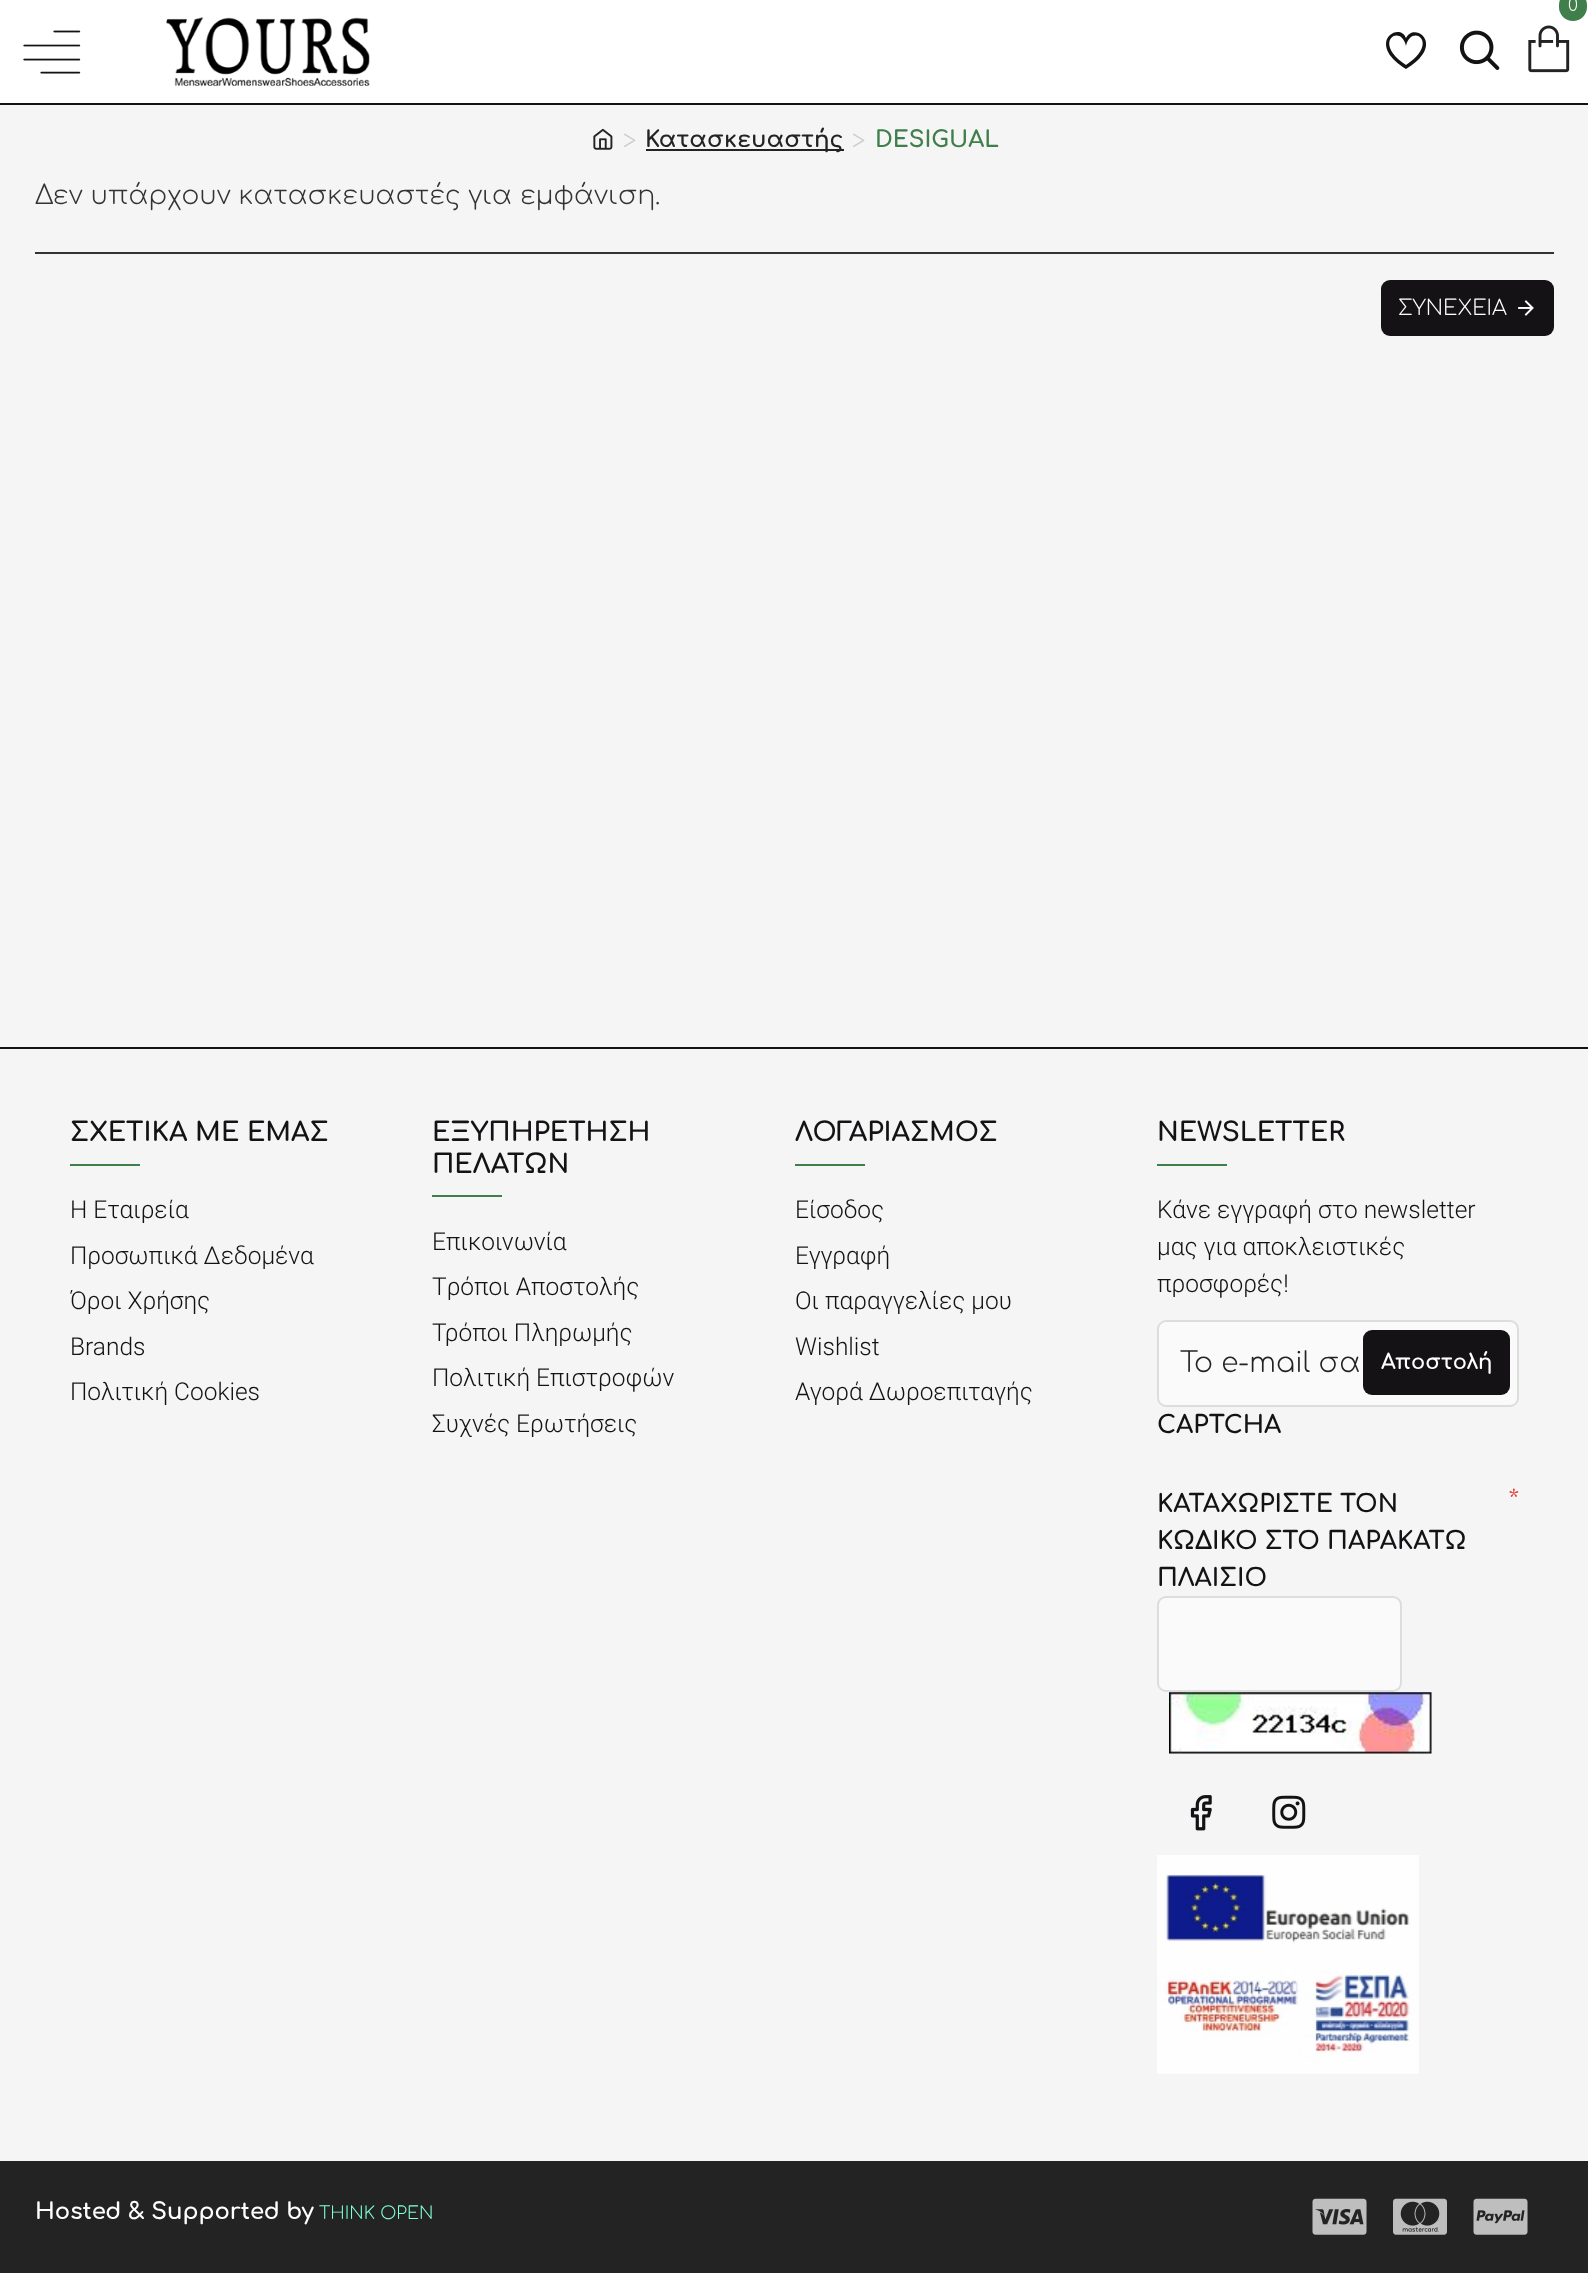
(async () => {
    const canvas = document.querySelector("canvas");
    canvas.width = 1588;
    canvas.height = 2273;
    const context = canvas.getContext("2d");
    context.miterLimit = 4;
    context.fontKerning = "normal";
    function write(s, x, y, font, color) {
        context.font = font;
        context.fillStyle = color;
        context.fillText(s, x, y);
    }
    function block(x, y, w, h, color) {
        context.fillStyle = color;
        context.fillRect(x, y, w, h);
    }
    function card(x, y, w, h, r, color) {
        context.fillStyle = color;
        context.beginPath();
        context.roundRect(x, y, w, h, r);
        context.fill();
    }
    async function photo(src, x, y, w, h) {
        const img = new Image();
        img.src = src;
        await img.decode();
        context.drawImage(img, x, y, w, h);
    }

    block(0, 0, 1588, 2273, "rgb(245, 245, 245)");
    block(0, 0, 1588, 103, "rgb(255, 255, 255)");
    block(0, 103, 1588, 2, "rgb(20, 18, 21)");
    card(1559, -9, 28, 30, 14, "rgb(64, 126, 75)");
    write("0", 1568, 11, "300 17.5px Comfortaa", "rgb(255, 255, 255)");
    await photo("media/1.png", 1528, 25, 42, 48);
    await photo("media/2.png", 23, 30, 58, 44);
    context.fillStyle = "rgb(20, 18, 21)";
    context.beginPath();
    context.moveTo(1406, 46);
    context.bezierCurveTo(1411, 23, 1441, 42, 1406, 65);
    context.bezierCurveTo(1371, 42, 1401, 23, 1406, 46);
    context.closePath();
    context.moveTo(1386, 44);
    context.bezierCurveTo(1386, 55, 1398, 64, 1406, 69);
    context.bezierCurveTo(1447, 44, 1414, 21, 1406, 38);
    context.bezierCurveTo(1402, 27, 1386, 32, 1386, 44);
    context.closePath();
    context.fill();
    await photo("media/3.png", 1459, 30, 41, 40);
    await photo("media/4.png", 166, 17, 204, 69);
    await photo("media/5.png", 593, 128, 20, 22);
    write(">", 623, 149, "300 24.5px Comfortaa", "rgb(204, 204, 204)");
    block(646, 149, 198, 2, "rgb(35, 35, 35)");
    write("Κατασκευαστής", 645, 147, "bold 22.75px Comfortaa", "rgb(35, 35, 35)");
    write(">", 852, 149, "300 24.5px Comfortaa", "rgb(204, 204, 204)");
    write("DESIGUAL", 875, 147, "bold 22.75px Comfortaa", "rgb(64, 126, 75)");
    write("Δεν υπάρχουν κατασκευαστές για εμφάνιση.", 35, 204, "300 26.25px Comfortaa", "rgb(51, 51, 51)");
    block(35, 252, 1519, 2, "rgb(51, 51, 51)");
    card(1381, 280, 173, 56, 9, "rgb(20, 18, 21)");
    write("ΣΥΝΕΧΕΙΑ", 1398, 315, "300 21px Comfortaa", "rgb(255, 255, 255)");
    await photo("media/6.png", 1518, 300, 16, 16);
    block(0, 1047, 1588, 2, "rgb(20, 18, 21)");
    write("ΣΧΕΤΙΚΑ ΜΕ ΕΜΑΣ", 70, 1141, "bold 26.25px Comfortaa", "rgb(20, 18, 21)");
    block(70, 1164, 70, 2, "rgb(64, 126, 75)");
    write("Η Εταιρεία", 70, 1218, "300 24.5px Roboto", "rgb(20, 18, 21)");
    write("Προσωπικά Δεδομένα", 70, 1264, "300 24.5px Roboto", "rgb(20, 18, 21)");
    write("Όροι Χρήσης", 70, 1309, "300 24.5px Roboto", "rgb(20, 18, 21)");
    write("Brands", 70, 1355, "300 24.5px Roboto", "rgb(20, 18, 21)");
    write("Πολιτική Cookies", 70, 1400, "300 24.5px Roboto", "rgb(20, 18, 21)");
    write("ΕΞΥΠΗΡΕΤΗΣΗ", 432, 1141, "bold 26.25px Comfortaa", "rgb(20, 18, 21)");
    write("ΠΕΛΑΤΩΝ", 432, 1173, "bold 26.25px Comfortaa", "rgb(20, 18, 21)");
    block(432, 1195, 70, 2, "rgb(64, 126, 75)");
    write("Επικοινωνία", 432, 1250, "300 24.5px Roboto", "rgb(20, 18, 21)");
    write("Tρόποι Αποστολής", 432, 1295, "300 24.5px Roboto", "rgb(20, 18, 21)");
    write("Τρόποι Πληρωμής", 432, 1341, "300 24.5px Roboto", "rgb(20, 18, 21)");
    write("Πολιτική Επιστροφών", 432, 1386, "300 24.5px Roboto", "rgb(20, 18, 21)");
    write("Συχνές Ερωτήσεις", 432, 1432, "300 24.5px Roboto", "rgb(20, 18, 21)");
    write("ΛΟΓΑΡΙΑΣΜΟΣ", 795, 1141, "bold 26.25px Comfortaa", "rgb(20, 18, 21)");
    block(795, 1164, 70, 2, "rgb(64, 126, 75)");
    write("Είσοδος", 795, 1218, "300 24.5px Roboto", "rgb(20, 18, 21)");
    write("Εγγραφή", 795, 1264, "300 24.5px Roboto", "rgb(20, 18, 21)");
    write("Οι παραγγελίες μου", 795, 1309, "300 24.5px Roboto", "rgb(20, 18, 21)");
    write("Wishlist", 795, 1355, "300 24.5px Roboto", "rgb(20, 18, 21)");
    write("Αγορά Δωροεπιταγής", 795, 1400, "300 24.5px Roboto", "rgb(20, 18, 21)");
    write("NEWSLETTER", 1157, 1141, "bold 26.25px Comfortaa", "rgb(20, 18, 21)");
    block(1157, 1164, 70, 2, "rgb(64, 126, 75)");
    write("Κάνε εγγραφή στο newsletter", 1157, 1218, "300 24.5px Roboto", "rgb(20, 18, 21)");
    write("μας για αποκλειστικές", 1157, 1255, "300 24.5px Roboto", "rgb(20, 18, 21)");
    write("προσφορές!", 1157, 1292, "300 24.5px Roboto", "rgb(20, 18, 21)");
    context.fillStyle = "rgb(250, 250, 250)";
    context.beginPath();
    context.roundRect(1158, 1321, 360, 85, 8);
    context.fill();
    context.strokeStyle = "rgb(221, 221, 221)";
    context.lineWidth = 2;
    context.stroke();
    write("Το e-mail σα", 1180, 1372, "300 28px Comfortaa", "rgb(35, 35, 35)");
    card(1363, 1330, 147, 65, 9, "rgb(20, 18, 21)");
    write("Αποστολή", 1381, 1369, "bold 21px Comfortaa", "rgb(255, 255, 255)");
    write("CAPTCHA", 1157, 1433, "bold 24.5px Comfortaa", "rgb(20, 18, 21)");
    write("ΚΑΤΑΧΩΡΙΣΤΕ ΤΟΝ", 1157, 1512, "bold 24.5px Comfortaa", "rgb(20, 18, 21)");
    write("*", 1508, 1512, "300 30px Comfortaa", "rgb(227, 61, 50)");
    write("ΚΩΔΙΚΟ ΣΤΟ ΠΑΡΑΚΑΤΩ", 1157, 1549, "bold 24.5px Comfortaa", "rgb(20, 18, 21)");
    write("ΠΛΑΙΣΙΟ", 1157, 1586, "bold 24.5px Comfortaa", "rgb(20, 18, 21)");
    context.fillStyle = "rgb(250, 250, 250)";
    context.beginPath();
    context.roundRect(1158, 1597, 243, 94, 8);
    context.fill();
    context.stroke();
    await photo("media/7.png", 1169, 1692, 263, 62);
    await photo("media/8.png", 1190, 1795, 22, 36);
    await photo("media/9.png", 1272, 1795, 34, 34);
    await photo("media/10.png", 1157, 1855, 262, 219);
    block(0, 2161, 1588, 112, "rgb(35, 35, 35)");
    write("Hosted & Supported by", 35, 2219, "bold 22.75px Comfortaa", "rgb(255, 255, 255)");
    write("THINK OPEN", 319, 2219, "300 17.5px Comfortaa", "rgb(127, 255, 212)");
    await photo("media/11.png", 1312, 2198, 55, 37);
    await photo("media/12.png", 1393, 2198, 54, 37);
    await photo("media/13.png", 1473, 2198, 55, 37);
})();
